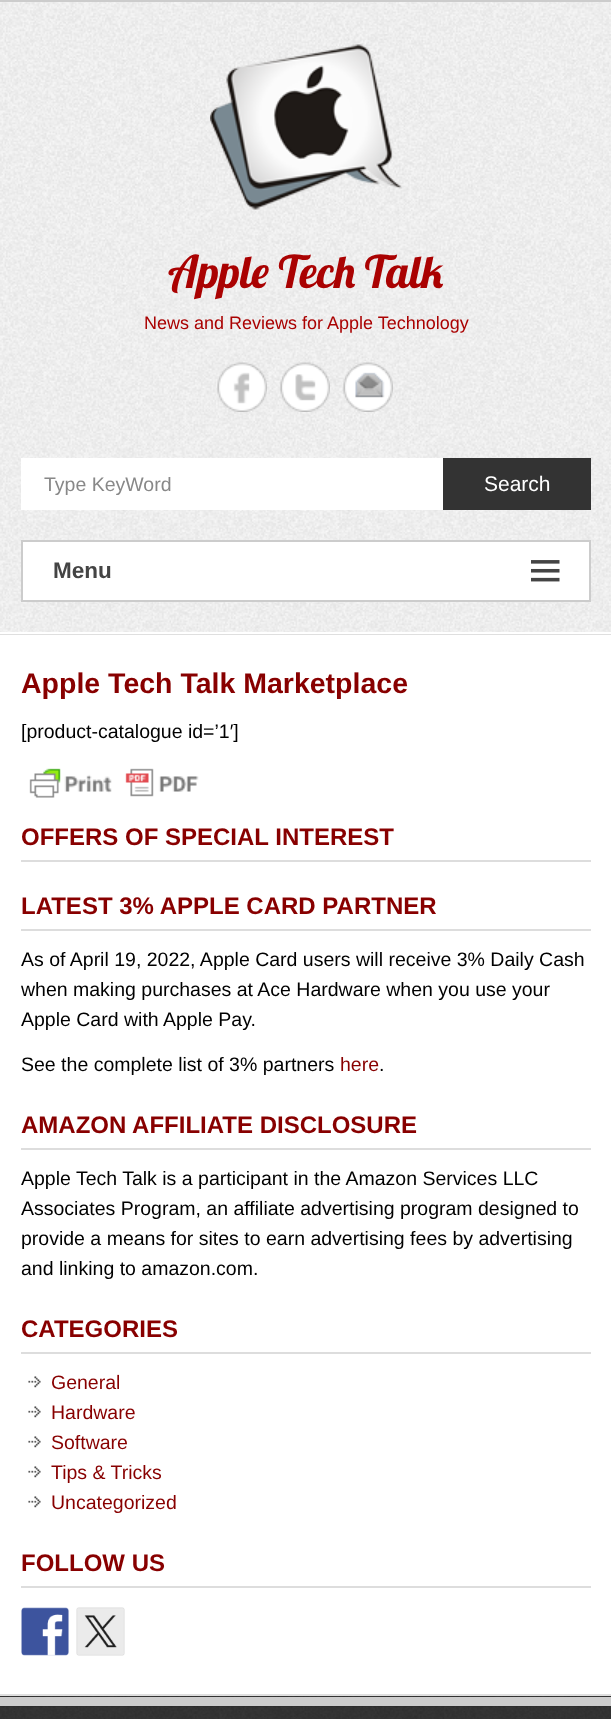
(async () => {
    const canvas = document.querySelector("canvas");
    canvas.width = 611;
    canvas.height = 1719;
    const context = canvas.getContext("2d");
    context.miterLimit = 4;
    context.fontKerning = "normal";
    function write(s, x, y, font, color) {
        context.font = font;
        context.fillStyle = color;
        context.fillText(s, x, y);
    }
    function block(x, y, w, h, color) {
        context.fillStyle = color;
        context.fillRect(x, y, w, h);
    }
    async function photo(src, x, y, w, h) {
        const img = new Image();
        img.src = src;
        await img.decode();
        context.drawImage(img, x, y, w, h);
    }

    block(0, 0, 611, 1719, "rgb(255, 255, 255)");
    await photo("media/1.png", 0, 2, 611, 630);
    block(0, 634, 611, 1, "rgb(223, 223, 223)");
    block(0, 0, 611, 2, "rgb(204, 204, 204)");
    await photo("media/2.png", 210, 44, 192, 166);
    write("Apple Tech Talk", 168, 288, "45px Lobster", "rgb(170, 2, 2)");
    write("News and Reviews for Apple Technology", 144, 329, "18px Liberation Sans", "rgb(170, 2, 2)");
    await photo("media/3.png", 217, 362, 50, 50);
    await photo("media/4.png", 280, 362, 50, 50);
    await photo("media/5.png", 343, 362, 50, 50);
    block(21, 458, 422, 52, "rgb(255, 255, 255)");
    write("Type KeyWord", 44, 491, "19.5px Liberation Sans", "rgb(136, 136, 136)");
    block(443, 458, 148, 52, "rgb(51, 51, 51)");
    write("Search", 484, 491, "21px Liberation Sans", "rgb(255, 255, 255)");
    context.beginPath();
    context.rect(22, 541, 568, 60);
    context.fill();
    context.strokeStyle = "rgb(204, 204, 204)";
    context.lineWidth = 2;
    context.stroke();
    write("Menu", 53, 578, "bold 22.5px Liberation Sans", "rgb(68, 68, 68)");
    await photo("media/6.png", 531, 560, 29, 22);
    write("Apple Tech Talk Marketplace", 21, 693, "bold 28.5px Liberation Sans", "rgb(136, 0, 0)");
    write("[product-catalogue id=’1′]", 21, 738, "19.5px Liberation Sans", "rgb(0, 0, 0)");
    await photo("media/7.png", 29, 768, 170, 30);
    block(21, 860, 570, 2, "rgb(221, 221, 221)");
    write("OFFERS OF SPECIAL INTEREST", 21, 845, "bold 24px Liberation Sans", "rgb(136, 0, 0)");
    block(21, 929, 570, 2, "rgb(221, 221, 221)");
    write("LATEST 3% APPLE CARD PARTNER", 21, 914, "bold 24px Liberation Sans", "rgb(136, 0, 0)");
    write("As of April 19, 2022, Apple Card users will receive 3% Daily Cash", 21, 966, "19.5px Liberation Sans", "rgb(0, 0, 0)");
    write("when making purchases at Ace Hardware when you use your", 21, 996, "19.5px Liberation Sans", "rgb(0, 0, 0)");
    write("Apple Card with Apple Pay.", 21, 1026, "19.5px Liberation Sans", "rgb(0, 0, 0)");
    write("See the complete list of 3% partners", 21, 1071, "19.5px Liberation Sans", "rgb(0, 0, 0)");
    write("here", 340, 1071, "19.5px Liberation Sans", "rgb(136, 0, 0)");
    write(".", 379, 1071, "19.5px Liberation Sans", "rgb(0, 0, 0)");
    block(21, 1148, 570, 2, "rgb(221, 221, 221)");
    write("AMAZON AFFILIATE DISCLOSURE", 21, 1133, "bold 24px Liberation Sans", "rgb(136, 0, 0)");
    write("Apple Tech Talk is a participant in the Amazon Services LLC", 21, 1185, "19.5px Liberation Sans", "rgb(0, 0, 0)");
    write("Associates Program, an affiliate advertising program designed to", 21, 1215, "19.5px Liberation Sans", "rgb(0, 0, 0)");
    write("provide a means for sites to earn advertising fees by advertising", 21, 1245, "19.5px Liberation Sans", "rgb(0, 0, 0)");
    write("and linking to amazon.com.", 21, 1275, "19.5px Liberation Sans", "rgb(0, 0, 0)");
    block(21, 1352, 570, 2, "rgb(221, 221, 221)");
    write("CATEGORIES", 21, 1337, "bold 24px Liberation Sans", "rgb(136, 0, 0)");
    await photo("media/8.png", 28, 1376, 13, 12);
    write("General", 51, 1389, "19.5px Liberation Sans", "rgb(136, 0, 0)");
    await photo("media/8.png", 28, 1406, 13, 12);
    write("Hardware", 51, 1419, "19.5px Liberation Sans", "rgb(136, 0, 0)");
    await photo("media/8.png", 28, 1436, 13, 12);
    write("Software", 51, 1449, "19.5px Liberation Sans", "rgb(136, 0, 0)");
    await photo("media/8.png", 28, 1466, 13, 12);
    write("Tips & Tricks", 51, 1479, "19.5px Liberation Sans", "rgb(136, 0, 0)");
    await photo("media/8.png", 28, 1496, 13, 12);
    write("Uncategorized", 51, 1509, "19.5px Liberation Sans", "rgb(136, 0, 0)");
    block(21, 1586, 570, 2, "rgb(221, 221, 221)");
    write("FOLLOW US", 21, 1571, "bold 24px Liberation Sans", "rgb(136, 0, 0)");
    await photo("media/9.png", 21, 1607, 48, 49);
    await photo("media/10.png", 76, 1607, 49, 49);
    block(0, 1694, 611, 2, "rgb(223, 223, 223)");
    await photo("media/11.png", 0, 1696, 611, 23);
    block(0, 1697, 611, 9, "rgb(204, 204, 204)");
})();
